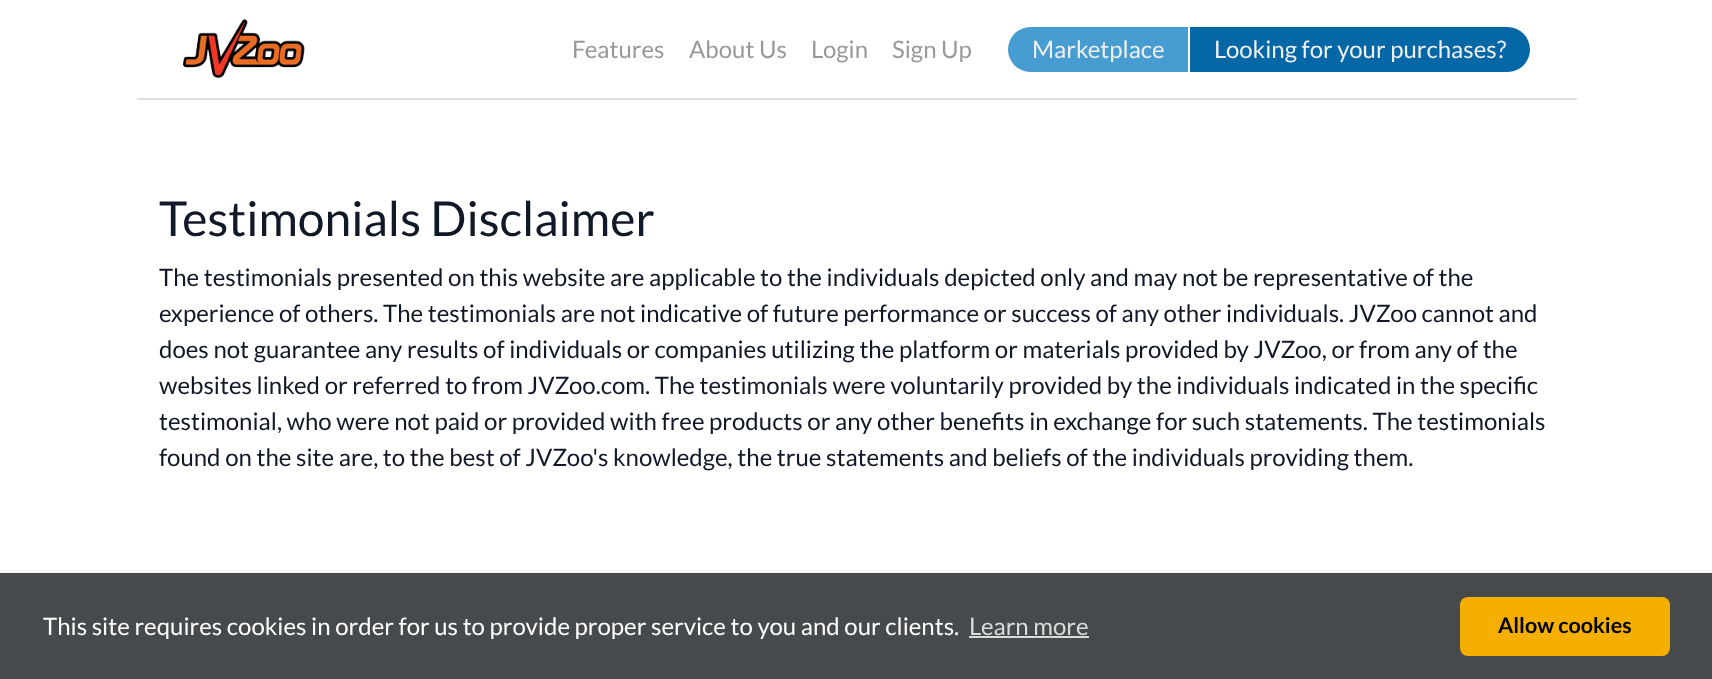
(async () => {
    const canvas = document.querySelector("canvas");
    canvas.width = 1712;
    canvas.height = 679;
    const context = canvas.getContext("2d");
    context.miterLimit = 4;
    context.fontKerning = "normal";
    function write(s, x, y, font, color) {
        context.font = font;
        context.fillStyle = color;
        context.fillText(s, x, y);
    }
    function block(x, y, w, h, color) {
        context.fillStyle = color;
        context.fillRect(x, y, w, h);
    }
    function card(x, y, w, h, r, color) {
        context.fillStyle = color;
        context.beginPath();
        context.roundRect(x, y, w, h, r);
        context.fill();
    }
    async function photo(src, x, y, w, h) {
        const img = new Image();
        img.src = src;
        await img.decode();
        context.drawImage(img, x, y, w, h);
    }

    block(0, 0, 1712, 679, "rgb(255, 255, 255)");
    block(137, 98, 1440, 2, "rgb(221, 221, 221)");
    await photo("media/1.png", 183, 19, 122, 59);
    write("Features", 572, 58, "24px Lato", "rgb(153, 153, 153)");
    write("About Us", 689, 58, "24px Lato", "rgb(153, 153, 153)");
    write("Login", 811, 58, "24px Lato", "rgb(153, 153, 153)");
    write("Sign Up", 892, 58, "24px Lato", "rgb(153, 153, 153)");
    context.fillStyle = "rgb(71, 157, 209)";
    context.beginPath();
    context.roundRect(1008, 27, 180, 45, [22.5, 0, 0, 22.5]);
    context.fill();
    write("Marketplace", 1032, 58, "24px Lato", "rgb(239, 239, 239)");
    context.fillStyle = "rgb(5, 103, 165)";
    context.beginPath();
    context.roundRect(1190, 27, 340, 45, [0, 22.5, 22.5, 0]);
    context.fill();
    write("Looking for your purchases?", 1214, 58, "24px Lato", "rgb(239, 239, 239)");
    write("Testimonials Disclaimer", 159, 236, "48px Lato", "rgb(17, 24, 39)");
    write("The testimonials presented on this website are applicable to the individuals depicted only and may not be representative of the", 159, 286, "24px Lato", "rgb(17, 24, 39)");
    write("experience of others. The testimonials are not indicative of future performance or success of any other individuals. JVZoo cannot and", 159, 322, "24px Lato", "rgb(17, 24, 39)");
    write("does not guarantee any results of individuals or companies utilizing the platform or materials provided by JVZoo, or from any of the", 159, 358, "24px Lato", "rgb(17, 24, 39)");
    write("websites linked or referred to from JVZoo.com. The testimonials were voluntarily provided by the individuals indicated in the specific", 159, 394, "24px Lato", "rgb(17, 24, 39)");
    write("testimonial, who were not paid or provided with free products or any other benefits in exchange for such statements. The testimonials", 159, 430, "24px Lato", "rgb(17, 24, 39)");
    write("found on the site are, to the best of JVZoo's knowledge, the true statements and beliefs of the individuals providing them.", 159, 466, "24px Lato", "rgb(17, 24, 39)");
    block(0, 570, 1712, 3, "rgb(247, 247, 249)");
    block(0, 573, 1712, 106, "rgb(70, 74, 76)");
    write("This site requires cookies in order for us to provide proper service to you and our clients.", 43, 635, "24px Lato", "rgb(255, 255, 255)");
    write("Learn more", 969, 635, "24px Lato", "rgb(218, 219, 219)");
    block(969, 636, 120, 2, "rgb(218, 219, 219)");
    card(1460, 597, 210, 59, 8, "rgb(245, 175, 1)");
    write("Allow cookies", 1498, 633, "bold 21.5px Lato", "rgb(0, 0, 0)");
})();
